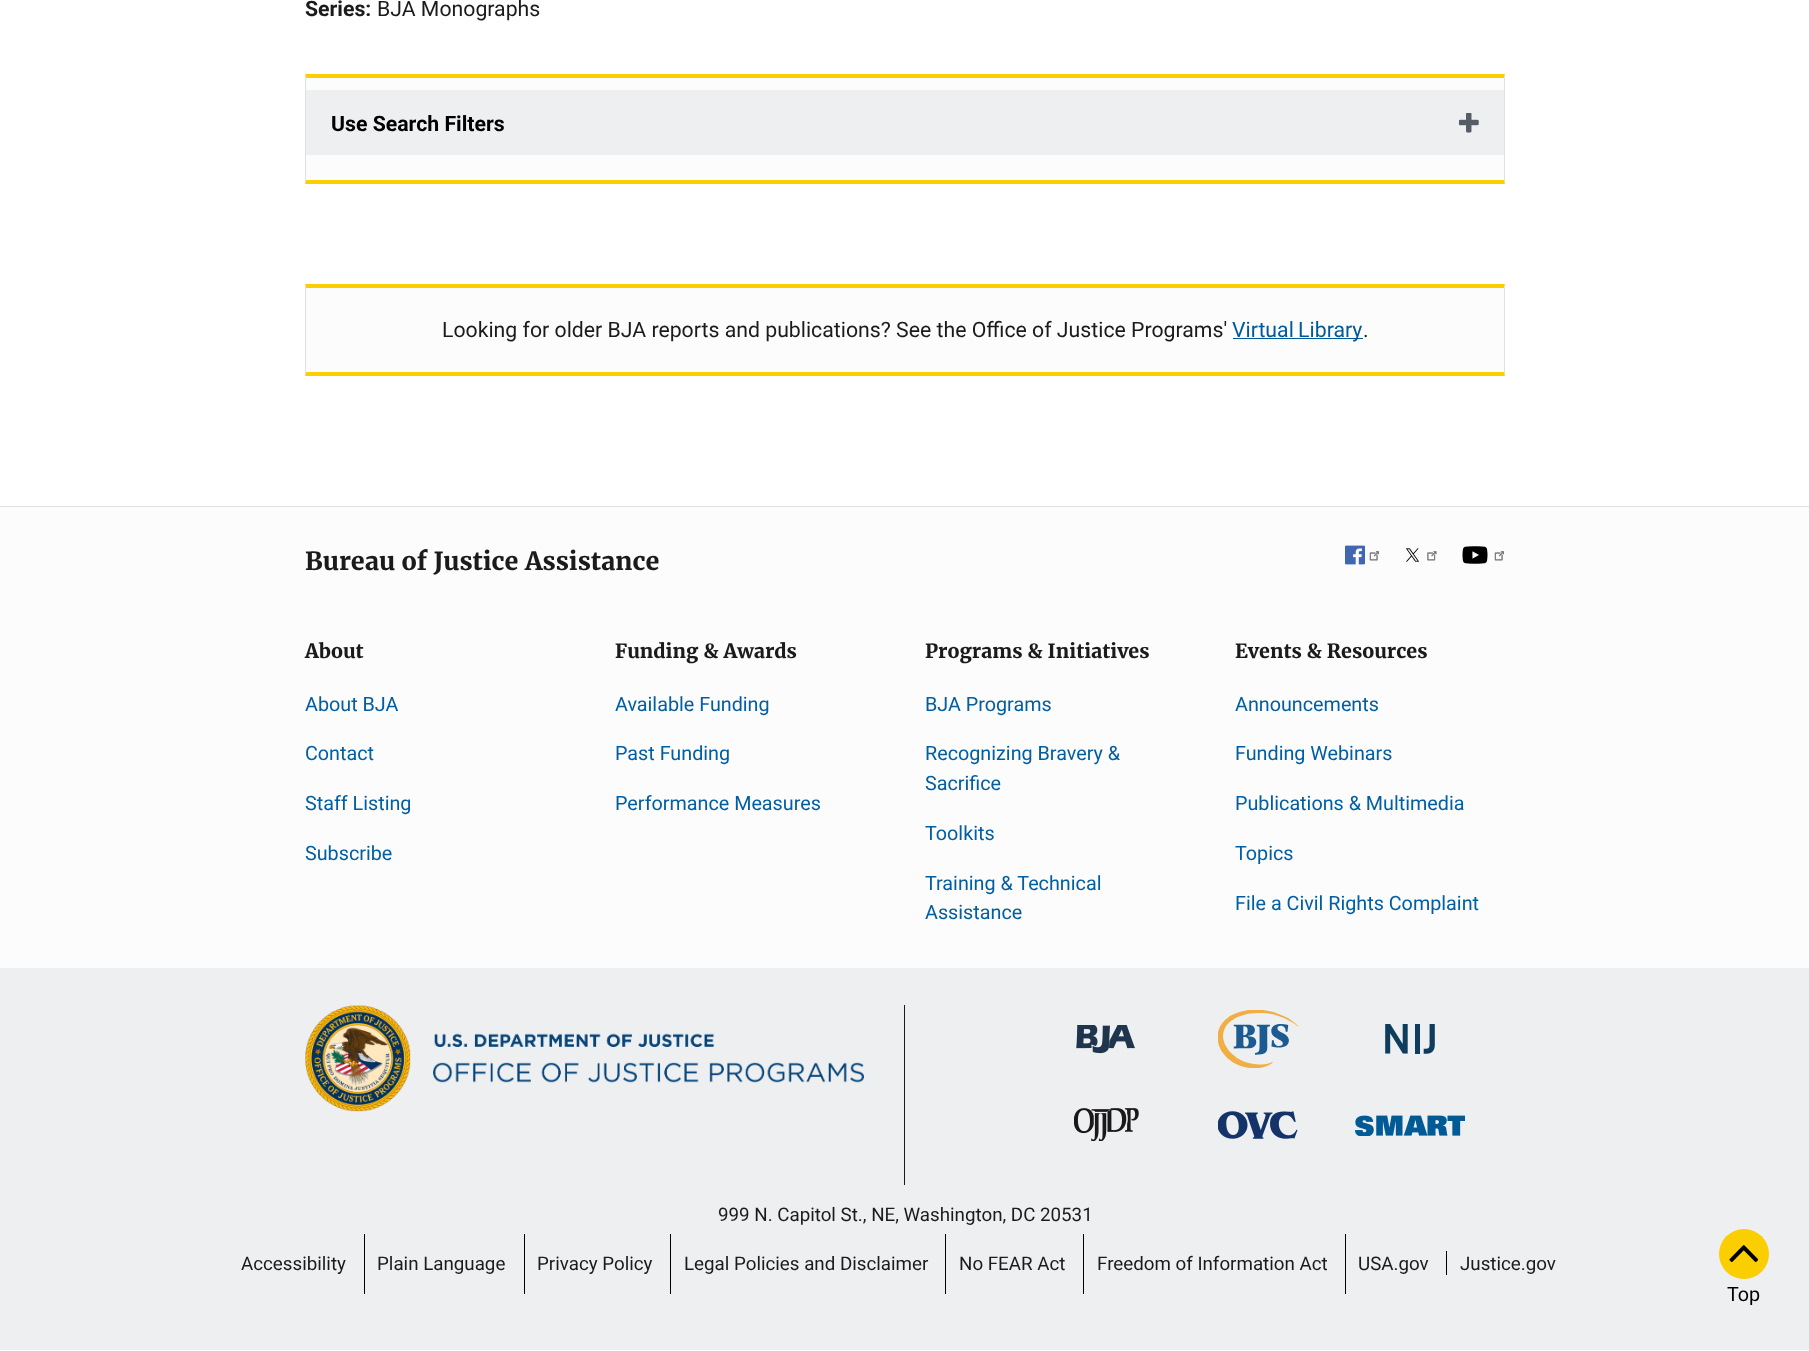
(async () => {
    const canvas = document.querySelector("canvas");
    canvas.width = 1809;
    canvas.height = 1351;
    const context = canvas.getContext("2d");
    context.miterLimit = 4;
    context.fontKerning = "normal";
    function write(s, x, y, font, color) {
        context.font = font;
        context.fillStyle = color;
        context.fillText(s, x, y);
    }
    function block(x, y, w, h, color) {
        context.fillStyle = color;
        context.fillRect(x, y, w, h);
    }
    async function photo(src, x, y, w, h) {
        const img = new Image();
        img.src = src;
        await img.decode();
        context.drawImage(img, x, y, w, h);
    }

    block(0, 0, 1809, 1351, "rgb(255, 255, 255)");
    write("Series:", 305, 16, "bold 21.25px Roboto", "rgb(27, 27, 27)");
    write("BJA Monographs", 377, 16, "21.25px Roboto", "rgb(27, 27, 27)");
    block(306, 78, 1198, 102, "rgb(252, 252, 252)");
    context.fillStyle = "rgb(250, 206, 0)";
    context.beginPath();
    context.moveTo(305, 74);
    context.lineTo(1505, 74);
    context.lineTo(1504, 78);
    context.lineTo(306, 78);
    context.closePath();
    context.fill();
    context.fillStyle = "rgb(223, 225, 226)";
    context.beginPath();
    context.moveTo(1505, 74);
    context.lineTo(1505, 184);
    context.lineTo(1504, 180);
    context.lineTo(1504, 78);
    context.closePath();
    context.fill();
    context.fillStyle = "rgb(250, 206, 0)";
    context.beginPath();
    context.moveTo(1505, 184);
    context.lineTo(305, 184);
    context.lineTo(306, 180);
    context.lineTo(1504, 180);
    context.closePath();
    context.fill();
    context.fillStyle = "rgb(223, 225, 226)";
    context.beginPath();
    context.moveTo(305, 184);
    context.lineTo(305, 74);
    context.lineTo(306, 78);
    context.lineTo(306, 180);
    context.closePath();
    context.fill();
    block(306, 90, 1198, 65, "rgb(237, 239, 240)");
    await photo("media/1.png", 1459, 113, 20, 20);
    write("Use Search Filters", 331, 131, "bold 21.25px Roboto", "rgb(0, 0, 0)");
    block(306, 288, 1198, 84, "rgb(252, 252, 252)");
    context.fillStyle = "rgb(250, 206, 0)";
    context.beginPath();
    context.moveTo(305, 284);
    context.lineTo(1505, 284);
    context.lineTo(1504, 288);
    context.lineTo(306, 288);
    context.closePath();
    context.fill();
    context.fillStyle = "rgb(223, 225, 226)";
    context.beginPath();
    context.moveTo(1505, 284);
    context.lineTo(1505, 376);
    context.lineTo(1504, 372);
    context.lineTo(1504, 288);
    context.closePath();
    context.fill();
    context.fillStyle = "rgb(250, 206, 0)";
    context.beginPath();
    context.moveTo(1505, 376);
    context.lineTo(305, 376);
    context.lineTo(306, 372);
    context.lineTo(1504, 372);
    context.closePath();
    context.fill();
    context.fillStyle = "rgb(223, 225, 226)";
    context.beginPath();
    context.moveTo(305, 376);
    context.lineTo(305, 284);
    context.lineTo(306, 288);
    context.lineTo(306, 372);
    context.closePath();
    context.fill();
    write("Looking for older BJA reports and publications? See the Office of Justice Programs'", 442, 337, "21.25px Roboto", "rgb(27, 27, 27)");
    block(1233, 338, 130, 1, "rgb(0, 89, 153)");
    context.wordSpacing = "-1px";
    write("Virtual Library", 1232, 337, "21.25px Roboto", "rgb(0, 89, 153)");
    context.wordSpacing = "0px";
    write(".", 1363, 337, "21.25px Roboto", "rgb(27, 27, 27)");
    block(0, 507, 1809, 461, "rgb(252, 252, 252)");
    block(0, 506, 1809, 1, "rgb(223, 225, 226)");
    write("Bureau of Justice Assistance", 305, 570, "bold 25px Merriweather", "rgb(27, 27, 27)");
    await photo("media/2.png", 1345, 545, 20, 20);
    await photo("media/3.png", 1369, 551, 11, 10);
    await photo("media/4.png", 1406, 548, 13, 14);
    await photo("media/5.png", 1427, 551, 10, 10);
    await photo("media/6.png", 1462, 546, 26, 18);
    await photo("media/3.png", 1494, 551, 11, 10);
    write("About", 305, 658, "bold 19.6px Merriweather", "rgb(27, 27, 27)");
    write("About BJA", 305, 711, "19.75px Roboto", "rgb(0, 94, 162)");
    write("Contact", 305, 760, "19.75px Roboto", "rgb(0, 94, 162)");
    write("Staff Listing", 305, 810, "19.75px Roboto", "rgb(0, 94, 162)");
    write("Subscribe", 305, 860, "19.75px Roboto", "rgb(0, 94, 162)");
    write("Funding & Awards", 615, 658, "bold 19.6px Merriweather", "rgb(27, 27, 27)");
    write("Available Funding", 615, 711, "19.75px Roboto", "rgb(0, 94, 162)");
    write("Past Funding", 615, 760, "19.75px Roboto", "rgb(0, 94, 162)");
    write("Performance Measures", 615, 810, "19.75px Roboto", "rgb(0, 94, 162)");
    write("Programs & Initiatives", 925, 658, "bold 19.6px Merriweather", "rgb(27, 27, 27)");
    write("BJA Programs", 925, 711, "19.75px Roboto", "rgb(0, 94, 162)");
    write("Recognizing Bravery &", 925, 760, "19.75px Roboto", "rgb(0, 94, 162)");
    write("Sacrifice", 925, 790, "19.75px Roboto", "rgb(0, 94, 162)");
    write("Toolkits", 925, 840, "19.75px Roboto", "rgb(0, 94, 162)");
    write("Training & Technical", 925, 890, "19.75px Roboto", "rgb(0, 94, 162)");
    write("Assistance", 925, 919, "19.75px Roboto", "rgb(0, 94, 162)");
    write("Events & Resources", 1235, 658, "bold 19.6px Merriweather", "rgb(27, 27, 27)");
    write("Announcements", 1235, 711, "19.75px Roboto", "rgb(0, 94, 162)");
    write("Funding Webinars", 1235, 760, "19.75px Roboto", "rgb(0, 94, 162)");
    write("Publications & Multimedia", 1235, 810, "19.75px Roboto", "rgb(0, 94, 162)");
    write("Topics", 1235, 860, "19.75px Roboto", "rgb(0, 94, 162)");
    write("File a Civil Rights Complaint", 1235, 910, "19.75px Roboto", "rgb(0, 94, 162)");
    block(0, 968, 1809, 382, "rgb(237, 239, 240)");
    block(904, 1005, 1, 180, "rgb(27, 27, 27)");
    await photo("media/7.png", 305, 1005, 559, 107);
    await photo("media/8.png", 1076, 1025, 59, 29);
    await photo("media/9.png", 1218, 1010, 81, 58);
    await photo("media/10.png", 1385, 1024, 50, 30);
    await photo("media/11.png", 1074, 1108, 65, 33);
    await photo("media/12.png", 1218, 1111, 80, 28);
    await photo("media/13.png", 1355, 1115, 110, 21);
    write("999 N. Capitol St., NE, Washington, DC 20531", 718, 1221, "18.75px Roboto", "rgb(27, 27, 27)");
    write("Accessibility", 241, 1270, "18.75px Roboto", "rgb(27, 27, 27)");
    block(364, 1234, 1, 60, "rgb(0, 0, 0)");
    write("Plain Language", 377, 1270, "18.75px Roboto", "rgb(27, 27, 27)");
    block(524, 1234, 1, 60, "rgb(0, 0, 0)");
    write("Privacy Policy", 537, 1270, "18.75px Roboto", "rgb(27, 27, 27)");
    block(670, 1234, 1, 60, "rgb(0, 0, 0)");
    write("Legal Policies and Disclaimer", 684, 1270, "18.75px Roboto", "rgb(27, 27, 27)");
    block(945, 1234, 1, 60, "rgb(0, 0, 0)");
    write("No FEAR Act", 959, 1270, "18.75px Roboto", "rgb(27, 27, 27)");
    block(1083, 1234, 1, 60, "rgb(0, 0, 0)");
    write("Freedom of Information Act", 1097, 1270, "18.75px Roboto", "rgb(27, 27, 27)");
    block(1345, 1234, 1, 60, "rgb(0, 0, 0)");
    write("USA.gov", 1358, 1270, "18.75px Roboto", "rgb(27, 27, 27)");
    block(1446, 1251, 1, 24, "rgb(0, 0, 0)");
    write("Justice.gov", 1460, 1270, "18.75px Roboto", "rgb(27, 27, 27)");
    context.fillStyle = "rgb(250, 206, 0)";
    context.beginPath();
    context.arc(1744, 1254, 25, 0, Math.PI * 2);
    context.fill();
    await photo("media/14.png", 1729, 1245, 30, 18);
    write("Top", 1727, 1301, "19.75px Roboto", "rgb(0, 0, 0)");
})();
